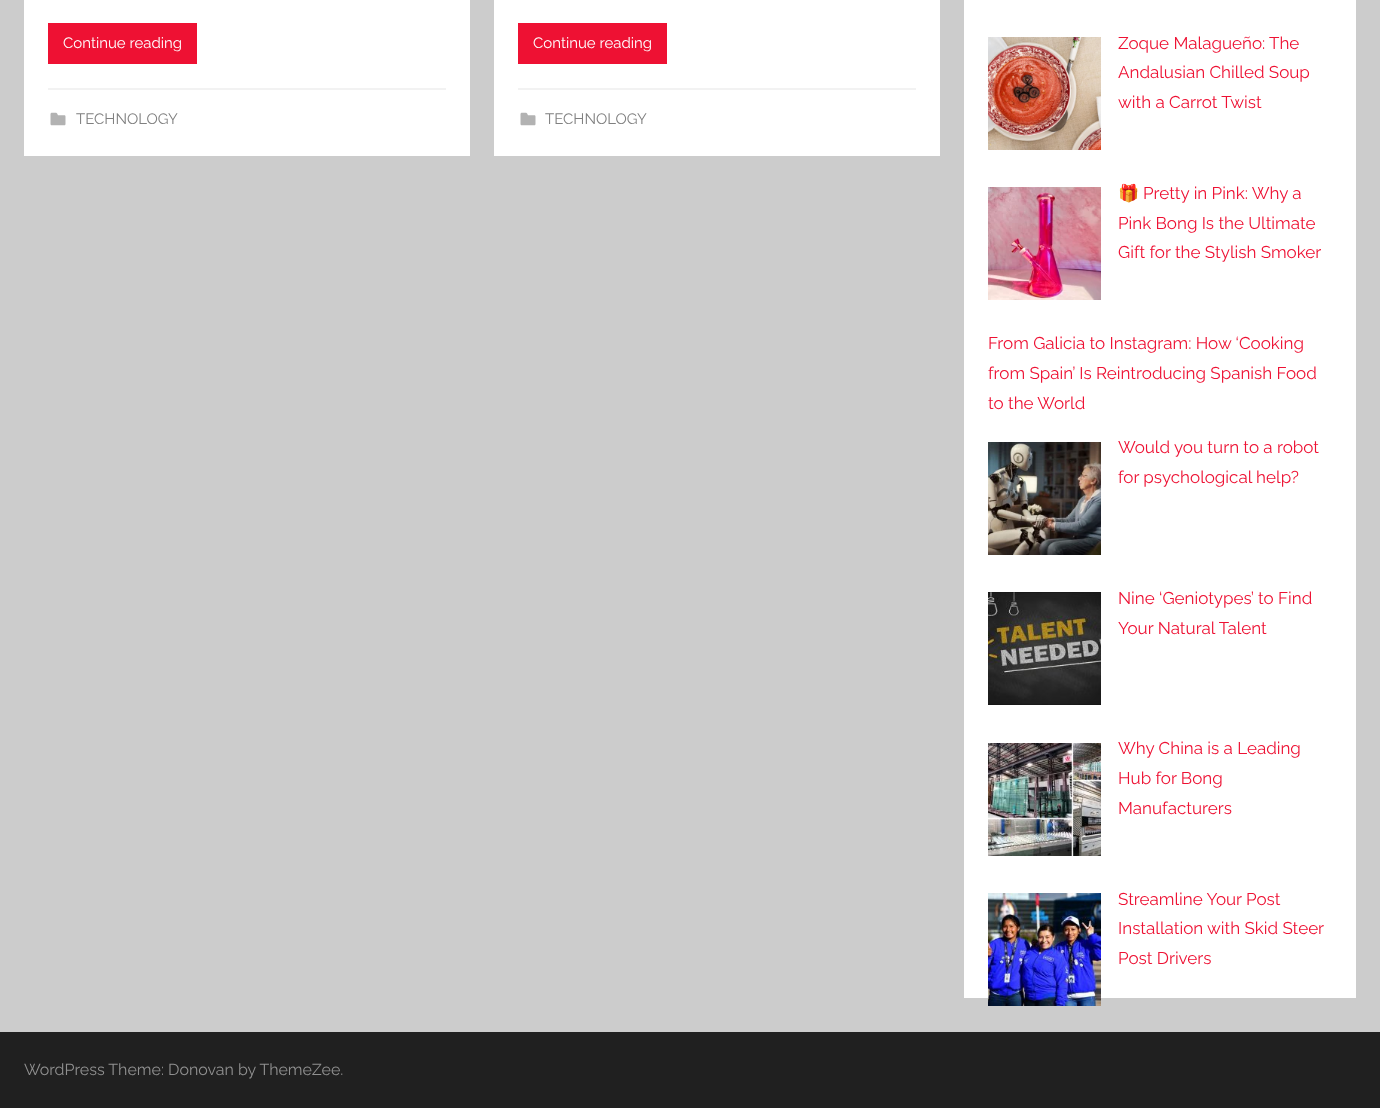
(async () => {
    const canvas = document.querySelector("canvas");
    canvas.width = 1380;
    canvas.height = 1108;
    const context = canvas.getContext("2d");
    context.miterLimit = 4;
    context.fontKerning = "normal";
    function write(s, x, y, font, color) {
        context.font = font;
        context.fillStyle = color;
        context.fillText(s, x, y);
    }
    function block(x, y, w, h, color) {
        context.fillStyle = color;
        context.fillRect(x, y, w, h);
    }
    async function photo(src, x, y, w, h) {
        const img = new Image();
        img.src = src;
        await img.decode();
        context.drawImage(img, x, y, w, h);
    }

    block(0, 0, 1380, 1108, "rgb(204, 204, 204)");
    block(24, 0, 446, 156, "rgb(255, 255, 255)");
    block(48, 23, 149, 41, "rgb(238, 17, 51)");
    write("Continue reading", 63, 48, "15px Raleway", "rgb(255, 255, 255)");
    block(48, 88, 398, 2, "rgb(242, 242, 242)");
    await photo("media/1.png", 50, 112, 16, 14);
    write("TECHNOLOGY", 76, 124, "15px Raleway", "rgb(128, 128, 128)");
    block(494, 0, 446, 156, "rgb(255, 255, 255)");
    block(518, 23, 149, 41, "rgb(238, 17, 51)");
    write("Continue reading", 533, 48, "15px Raleway", "rgb(255, 255, 255)");
    block(518, 88, 398, 2, "rgb(242, 242, 242)");
    await photo("media/1.png", 520, 112, 16, 14);
    write("TECHNOLOGY", 545, 124, "15px Raleway", "rgb(128, 128, 128)");
    block(964, 0, 392, 998, "rgb(255, 255, 255)");
    await photo("media/2.png", 988, 37, 113, 113);
    write("Zoque Malagueño: The", 1118, 49, "17px Raleway", "rgb(238, 17, 51)");
    write("Andalusian Chilled Soup", 1118, 78, "17px Raleway", "rgb(238, 17, 51)");
    write("with a Carrot Twist", 1118, 108, "17px Raleway", "rgb(238, 17, 51)");
    await photo("media/3.png", 988, 187, 113, 113);
    write("🎁", 1118, 199, "17px Noto Color Emoji", "rgb(238, 17, 51)");
    write("Pretty in Pink: Why a", 1143, 199, "17px Raleway", "rgb(238, 17, 51)");
    write("Pink Bong Is the Ultimate", 1118, 229, "17px Raleway", "rgb(238, 17, 51)");
    write("Gift for the Stylish Smoker", 1118, 258, "17px Raleway", "rgb(238, 17, 51)");
    write("From Galicia to Instagram: How ‘Cooking", 988, 349, "17px Raleway", "rgb(238, 17, 51)");
    write("from Spain’ Is Reintroducing Spanish Food", 988, 379, "17px Raleway", "rgb(238, 17, 51)");
    write("to the World", 988, 409, "17px Raleway", "rgb(238, 17, 51)");
    await photo("media/4.png", 988, 442, 113, 113);
    write("Would you turn to a robot", 1118, 453, "17px Raleway", "rgb(238, 17, 51)");
    write("for psychological help?", 1118, 483, "17px Raleway", "rgb(238, 17, 51)");
    await photo("media/5.png", 988, 592, 113, 113);
    write("Nine ‘Geniotypes’ to Find", 1118, 604, "17px Raleway", "rgb(238, 17, 51)");
    write("Your Natural Talent", 1118, 634, "17px Raleway", "rgb(238, 17, 51)");
    await photo("media/6.png", 988, 743, 113, 113);
    write("Why China is a Leading", 1118, 754, "17px Raleway", "rgb(238, 17, 51)");
    write("Hub for Bong", 1118, 784, "17px Raleway", "rgb(238, 17, 51)");
    write("Manufacturers", 1118, 814, "17px Raleway", "rgb(238, 17, 51)");
    await photo("media/7.png", 988, 893, 113, 113);
    write("Streamline Your Post", 1118, 905, "17px Raleway", "rgb(238, 17, 51)");
    write("Installation with Skid Steer", 1118, 934, "17px Raleway", "rgb(238, 17, 51)");
    write("Post Drivers", 1118, 964, "17px Raleway", "rgb(238, 17, 51)");
    block(0, 1032, 1380, 76, "rgb(32, 32, 32)");
    write("WordPress Theme: Donovan by ThemeZee.", 24, 1075, "16px Raleway", "rgb(144, 144, 144)");
})();
